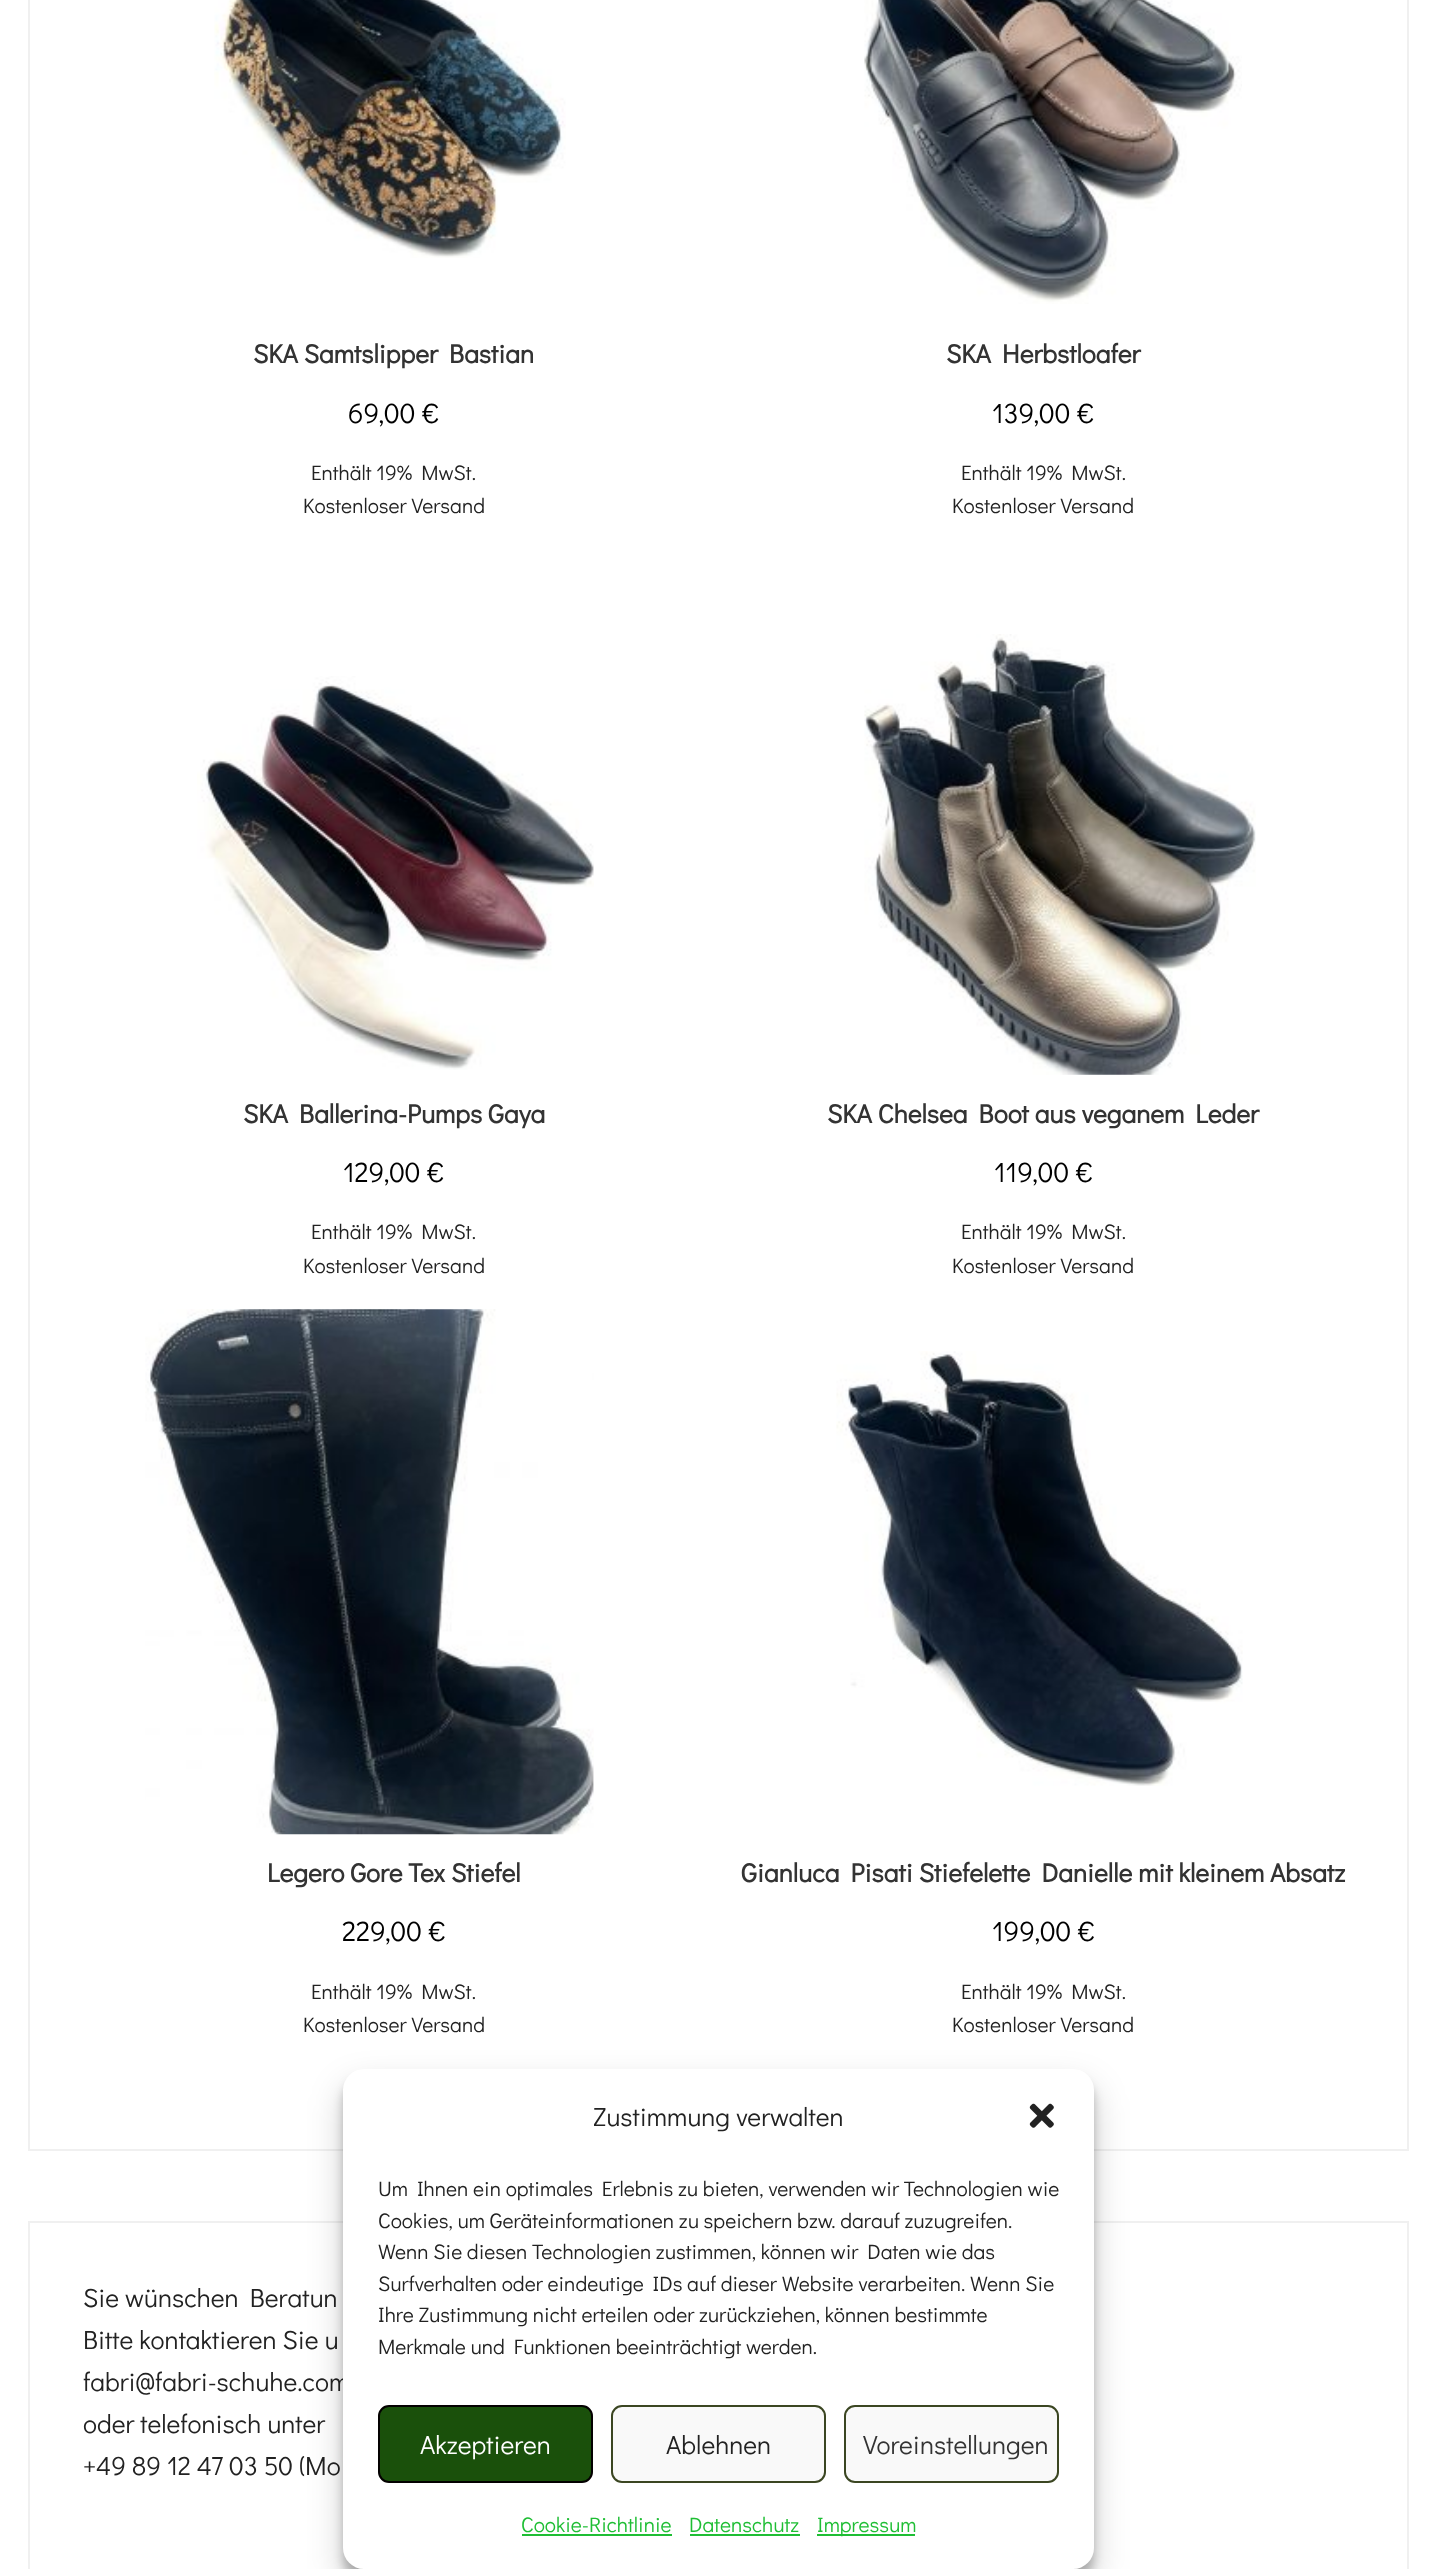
(async () => {
    const canvas = document.querySelector("canvas");
    canvas.width = 1436;
    canvas.height = 2569;
    const context = canvas.getContext("2d");
    context.miterLimit = 4;
    context.fontKerning = "normal";
    function write(s, x, y, font, color) {
        context.font = font;
        context.fillStyle = color;
        context.fillText(s, x, y);
    }
    function block(x, y, w, h, color) {
        context.fillStyle = color;
        context.fillRect(x, y, w, h);
    }
    function card(x, y, w, h, r, color) {
        context.fillStyle = color;
        context.beginPath();
        context.roundRect(x, y, w, h, r);
        context.fill();
    }
    async function photo(src, x, y, w, h) {
        const img = new Image();
        img.src = src;
        await img.decode();
        context.drawImage(img, x, y, w, h);
    }

    block(0, 0, 1436, 2569, "rgb(255, 255, 255)");
    context.strokeStyle = "rgb(240, 240, 240)";
    context.lineWidth = 2;
    context.strokeRect(29, -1, 1379, 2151);
    await photo("media/1.png", 214, 0, 352, 258);
    write("SKA Samtslipper Bastian", 253, 363, "bold 26.25px Didact Gothic", "rgb(51, 51, 51)");
    write("69,00 €", 348, 423, "28px Didact Gothic", "rgb(0, 0, 0)");
    write("Enthält 19% MwSt.", 311, 480, "21px Didact Gothic", "rgb(34, 34, 34)");
    write("Kostenloser Versand", 303, 513, "21px Didact Gothic", "rgb(34, 34, 34)");
    await photo("media/2.png", 864, 0, 378, 304);
    write("SKA Herbstloafer", 946, 363, "bold 26.25px Didact Gothic", "rgb(51, 51, 51)");
    write("139,00 €", 992, 423, "28px Didact Gothic", "rgb(0, 0, 0)");
    write("Enthält 19% MwSt.", 961, 480, "21px Didact Gothic", "rgb(34, 34, 34)");
    write("Kostenloser Versand", 952, 513, "21px Didact Gothic", "rgb(34, 34, 34)");
    await photo("media/3.png", 197, 676, 397, 394);
    write("SKA Ballerina-Pumps Gaya", 243, 1123, "bold 26.25px Didact Gothic", "rgb(51, 51, 51)");
    write("129,00 €", 343, 1182, "28px Didact Gothic", "rgb(0, 0, 0)");
    write("Enthält 19% MwSt.", 311, 1239, "21px Didact Gothic", "rgb(34, 34, 34)");
    write("Kostenloser Versand", 303, 1273, "21px Didact Gothic", "rgb(34, 34, 34)");
    await photo("media/4.png", 864, 634, 392, 441);
    write("SKA Chelsea Boot aus veganem Leder", 827, 1123, "bold 26.25px Didact Gothic", "rgb(51, 51, 51)");
    write("119,00 €", 994, 1182, "28px Didact Gothic", "rgb(0, 0, 0)");
    write("Enthält 19% MwSt.", 961, 1239, "21px Didact Gothic", "rgb(34, 34, 34)");
    write("Kostenloser Versand", 952, 1273, "21px Didact Gothic", "rgb(34, 34, 34)");
    await photo("media/5.png", 145, 1309, 449, 526);
    write("Legero Gore Tex Stiefel", 267, 1882, "bold 26.25px Didact Gothic", "rgb(51, 51, 51)");
    write("229,00 €", 342, 1941, "28px Didact Gothic", "rgb(0, 0, 0)");
    write("Enthält 19% MwSt.", 311, 1999, "21px Didact Gothic", "rgb(34, 34, 34)");
    write("Kostenloser Versand", 303, 2032, "21px Didact Gothic", "rgb(34, 34, 34)");
    await photo("media/6.png", 836, 1351, 407, 435);
    write("Gianluca Pisati Stiefelette Danielle mit kleinem Absatz", 741, 1882, "bold 26.25px Didact Gothic", "rgb(51, 51, 51)");
    write("199,00 €", 992, 1941, "28px Didact Gothic", "rgb(0, 0, 0)");
    write("Enthält 19% MwSt.", 961, 1999, "21px Didact Gothic", "rgb(34, 34, 34)");
    write("Kostenloser Versand", 952, 2032, "21px Didact Gothic", "rgb(34, 34, 34)");
    context.strokeRect(29, 2222, 1379, 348);
    write("Sie wünschen Beratun", 83, 2307, "26.25px Didact Gothic", "rgb(34, 34, 34)");
    write("Bitte kontaktieren Sie u", 83, 2349, "26.25px Didact Gothic", "rgb(34, 34, 34)");
    write("fabri@fabri-schuhe.com", 83, 2391, "26.25px Didact Gothic", "rgb(34, 34, 34)");
    write("oder telefonisch unter", 83, 2433, "26.25px Didact Gothic", "rgb(34, 34, 34)");
    write("+49 89 12 47 03 50 (Mo", 83, 2475, "26.25px Didact Gothic", "rgb(34, 34, 34)");
    context.fillStyle = "rgba(0, 0, 0, 0.23)";
    context.filter = "blur(5px)";
    context.beginPath();
    context.roundRect(343, 2079, 751, 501, 21);
    context.fill();
    context.filter = "none";
    context.fillStyle = "rgba(0, 0, 0, 0.19)";
    context.filter = "blur(17.5px)";
    context.beginPath();
    context.roundRect(343, 2086, 751, 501, 21);
    context.fill();
    context.filter = "none";
    card(343, 2069, 751, 500, 21, "rgb(255, 255, 255)");
    write("Zustimmung verwalten", 593, 2126, "26.25px Didact Gothic", "rgb(34, 34, 34)");
    await photo("media/7.png", 1029, 2103, 25, 25);
    write("Um Ihnen ein optimales Erlebnis zu bieten, verwenden wir Technologien wie", 378, 2196, "21px Didact Gothic", "rgb(34, 34, 34)");
    write("Cookies, um Geräteinformationen zu speichern bzw. darauf zuzugreifen.", 378, 2228, "21px Didact Gothic", "rgb(34, 34, 34)");
    write("Wenn Sie diesen Technologien zustimmen, können wir Daten wie das", 378, 2259, "21px Didact Gothic", "rgb(34, 34, 34)");
    write("Surfverhalten oder eindeutige IDs auf dieser Website verarbeiten. Wenn Sie", 378, 2291, "21px Didact Gothic", "rgb(34, 34, 34)");
    write("Ihre Zustimmung nicht erteilen oder zurückziehen, können bestimmte", 378, 2322, "21px Didact Gothic", "rgb(34, 34, 34)");
    write("Merkmale und Funktionen beeinträchtigt werden.", 378, 2354, "21px Didact Gothic", "rgb(34, 34, 34)");
    context.fillStyle = "rgb(26, 80, 11)";
    context.beginPath();
    context.roundRect(379, 2406, 213, 76, 10);
    context.fill();
    context.strokeStyle = "rgb(4, 1, 1)";
    context.stroke();
    write("Akzeptieren", 420, 2454, "26.25px Didact Gothic", "rgb(255, 255, 255)");
    context.fillStyle = "rgb(249, 249, 249)";
    context.beginPath();
    context.roundRect(612, 2406, 213, 76, 10);
    context.fill();
    context.strokeStyle = "rgb(59, 70, 34)";
    context.stroke();
    write("Ablehnen", 666, 2454, "26.25px Didact Gothic", "rgb(34, 34, 34)");
    context.fillStyle = "rgb(249, 249, 249)";
    context.beginPath();
    context.roundRect(845, 2406, 213, 76, 10);
    context.fill();
    context.stroke();
    write("Voreinstellungen", 863, 2454, "26.25px Didact Gothic", "rgb(51, 51, 51)");
    write("Cookie-Richtlinie", 521, 2532, "21px Didact Gothic", "rgb(30, 190, 52)");
    block(522, 2534, 150, 2, "rgb(30, 190, 52)");
    write("Datenschutz", 689, 2532, "21px Didact Gothic", "rgb(30, 190, 52)");
    block(690, 2534, 110, 2, "rgb(30, 190, 52)");
    block(817, 2534, 98, 2, "rgb(30, 190, 52)");
    write("Impressum", 817, 2532, "21px Didact Gothic", "rgb(30, 190, 52)");
})();
